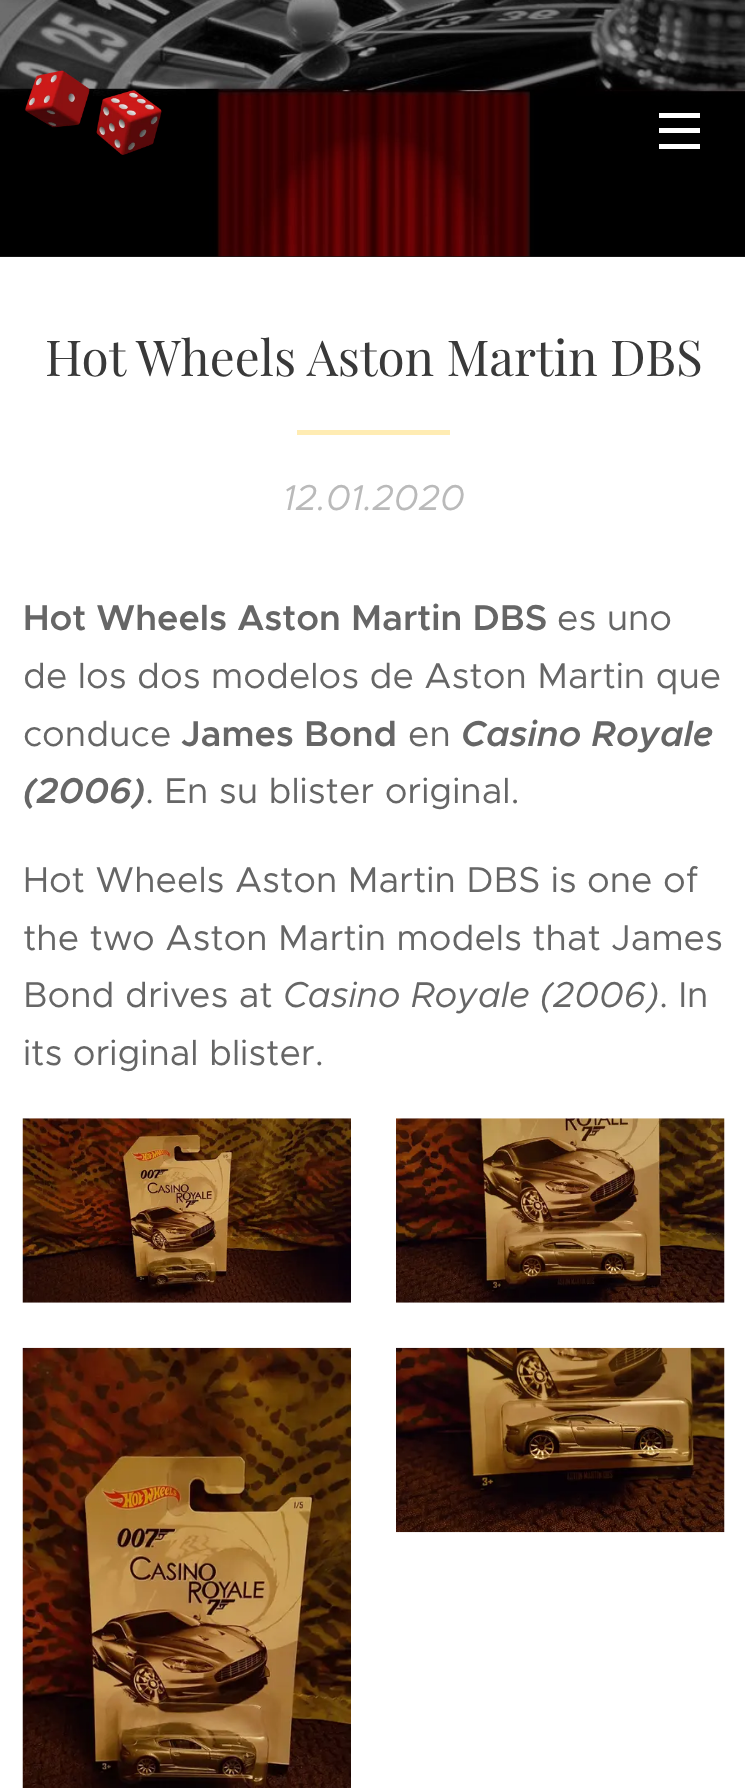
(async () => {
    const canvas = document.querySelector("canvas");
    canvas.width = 745;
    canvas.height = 1788;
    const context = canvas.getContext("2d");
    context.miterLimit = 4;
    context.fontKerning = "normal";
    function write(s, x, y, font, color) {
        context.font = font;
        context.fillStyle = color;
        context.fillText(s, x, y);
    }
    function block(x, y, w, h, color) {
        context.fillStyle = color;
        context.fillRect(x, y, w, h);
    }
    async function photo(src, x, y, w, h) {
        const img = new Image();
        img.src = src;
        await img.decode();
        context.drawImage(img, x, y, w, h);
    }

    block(0, 0, 745, 1788, "rgb(255, 255, 255)");
    block(0, 256, 745, 1, "rgb(27, 27, 27)");
    await photo("media/1.png", 0, 0, 745, 257);
    await photo("media/2.png", 25, 70, 137, 85);
    block(659, 128, 41, 5, "rgb(255, 255, 255)");
    block(659, 113, 41, 5, "rgb(255, 255, 255)");
    block(659, 144, 41, 5, "rgb(255, 255, 255)");
    write("Hot Wheels Aston Martin DBS", 45, 376, "49.5px Playfair Display", "rgb(57, 57, 57)");
    block(297, 430, 153, 5, "rgb(255, 236, 179)");
    write("12.01.2020", 283, 510, "italic 36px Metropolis", "rgb(186, 186, 186)");
    write("Hot Wheels Aston Martin DBS", 23, 630, "600 36px Metropolis", "rgb(102, 102, 102)");
    write("es uno", 557, 630, "36px Metropolis", "rgb(102, 102, 102)");
    write("de los dos modelos de Aston Martin que", 23, 688, "36px Metropolis", "rgb(102, 102, 102)");
    write("conduce", 23, 746, "36px Metropolis", "rgb(102, 102, 102)");
    write("James Bond", 181, 746, "600 36px Metropolis", "rgb(102, 102, 102)");
    write("en", 408, 746, "36px Metropolis", "rgb(102, 102, 102)");
    write("Casino Royale", 461, 746, "italic 600 36px Metropolis", "rgb(102, 102, 102)");
    write("(2006)", 23, 803, "italic 600 36px Metropolis", "rgb(102, 102, 102)");
    write(". En su blister original.", 145, 803, "36px Metropolis", "rgb(102, 102, 102)");
    write("Hot Wheels Aston Martin DBS is one of", 23, 892, "36px Metropolis", "rgb(102, 102, 102)");
    write("the two Aston Martin models that James", 23, 950, "36px Metropolis", "rgb(102, 102, 102)");
    write("Bond drives at", 23, 1007, "36px Metropolis", "rgb(102, 102, 102)");
    write("Casino Royale (2006)", 283, 1007, "italic 36px Metropolis", "rgb(102, 102, 102)");
    write(". In", 659, 1007, "36px Metropolis", "rgb(102, 102, 102)");
    write("its original blister.", 23, 1065, "36px Metropolis", "rgb(102, 102, 102)");
    await photo("media/3.png", 22, 1118, 329, 185);
    await photo("media/4.png", 396, 1118, 329, 185);
    await photo("media/5.png", 22, 1347, 329, 441);
    await photo("media/6.png", 396, 1347, 329, 186);
})();
